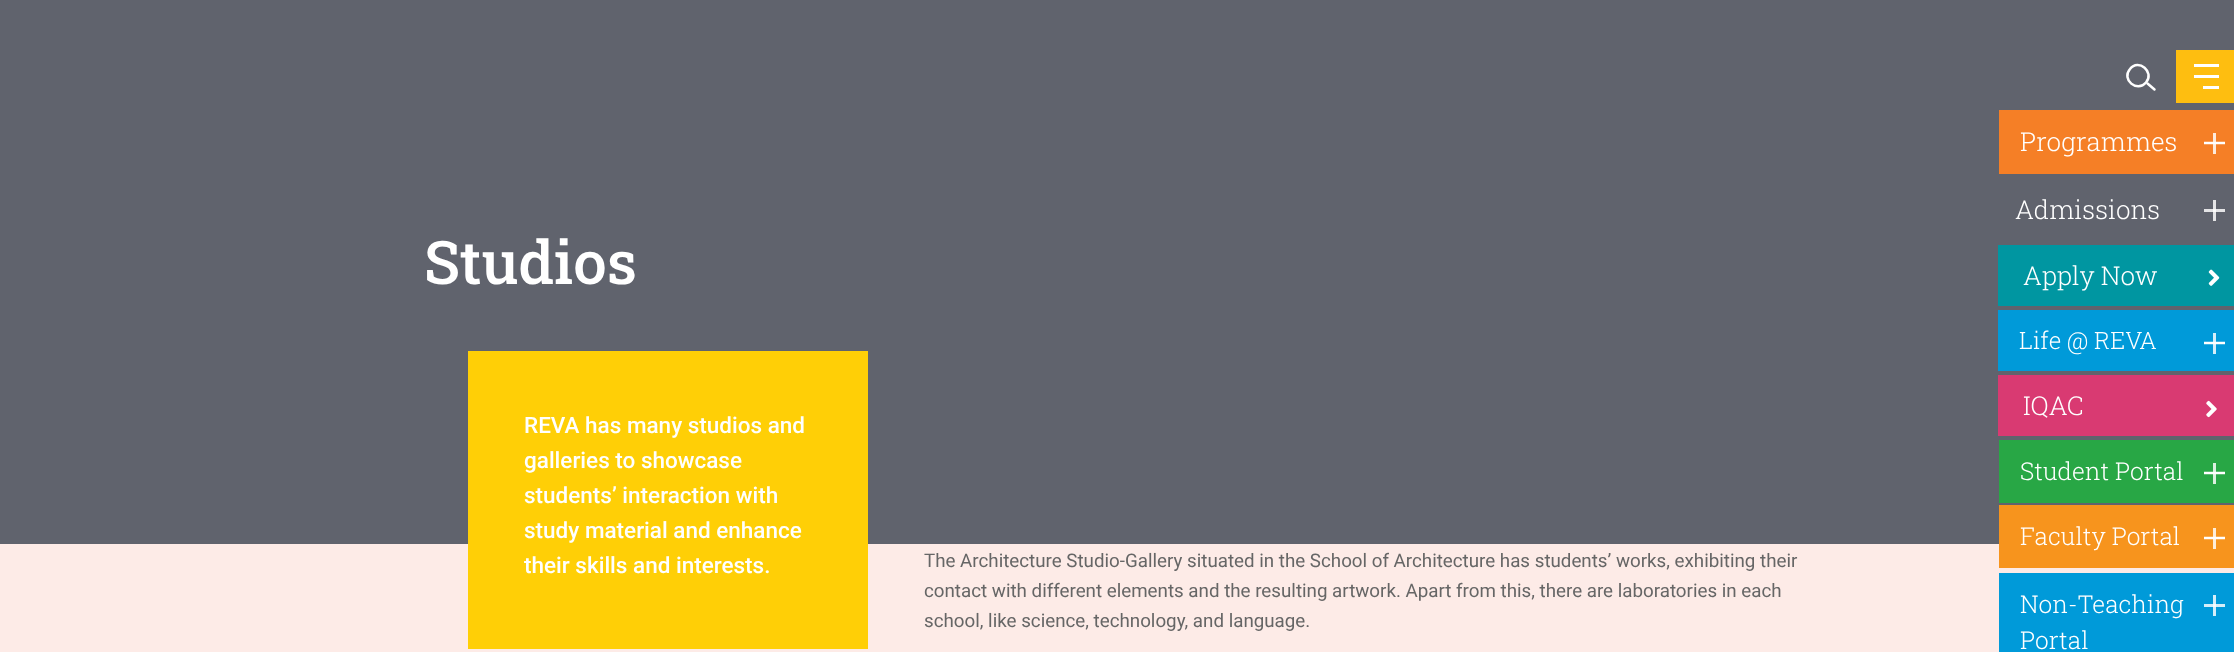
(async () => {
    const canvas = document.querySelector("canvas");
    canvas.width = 2234;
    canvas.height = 652;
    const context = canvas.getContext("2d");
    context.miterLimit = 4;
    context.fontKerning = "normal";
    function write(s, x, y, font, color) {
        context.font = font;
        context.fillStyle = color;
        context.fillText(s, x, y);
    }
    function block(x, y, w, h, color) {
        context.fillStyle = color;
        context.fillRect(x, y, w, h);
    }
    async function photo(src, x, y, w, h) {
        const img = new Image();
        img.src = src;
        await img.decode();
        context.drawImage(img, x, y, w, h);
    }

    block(0, 0, 2234, 652, "rgb(96, 99, 109)");
    block(2204, 209, 21, 3, "rgb(228, 228, 230)");
    write("Studios", 424, 284, "500 60px Roboto Slab", "rgb(255, 255, 255)");
    context.beginPath();
    context.moveTo(2130, 69);
    context.bezierCurveTo(2138.5, 58, 2155, 72, 2146, 82.5);
    context.bezierCurveTo(2137, 93, 2121, 79.5, 2130, 69);
    context.closePath();
    context.strokeStyle = "rgb(255, 255, 255)";
    context.lineWidth = 2.5;
    context.lineCap = "round";
    context.lineJoin = "round";
    context.stroke();
    context.beginPath();
    context.moveTo(2147.5, 83.5);
    context.lineTo(2154.5, 89.5);
    context.lineJoin = "miter";
    context.stroke();
    block(2176, 50, 58, 53, "rgb(254, 190, 16)");
    block(2194, 75, 25, 3, "rgb(255, 255, 255)");
    block(2194, 64, 25, 3, "rgb(255, 255, 255)");
    block(2203, 86, 16, 3, "rgb(255, 255, 255)");
    block(1999, 110, 235, 64, "rgb(245, 127, 38)");
    write("Programmes", 2020, 151, "300 26px Roboto Slab", "rgb(255, 255, 255)");
    block(2213, 133, 3, 21, "rgb(253, 234, 219)");
    context.save();
    context.beginPath();
    context.rect(2204, 133, 21, 21);
    context.clip();
    context.beginPath();
    context.moveTo(2225, 143);
    context.lineTo(2203.5, 143);
    context.lineCap = "butt";
    context.stroke();
    context.restore();
    write("Admissions", 2015, 219, "300 26px Roboto Slab", "rgb(255, 255, 255)");
    block(2213, 200, 3, 21, "rgb(229, 229, 231)");
    block(2213, 209, 3, 3, "rgb(251, 251, 251)");
    block(1998, 245, 236, 61, "rgb(0, 150, 161)");
    write("Apply Now", 2023, 285, "300 26px Roboto Slab", "rgb(255, 255, 255)");
    await photo("media/1.png", 2208, 269, 12, 17);
    block(1998, 310, 236, 61, "rgb(0, 154, 217)");
    write("Life @ REVA", 2019, 349, "300 24px Roboto Slab", "rgb(255, 255, 255)");
    block(2213, 333, 3, 21, "rgb(213, 238, 249)");
    context.save();
    context.beginPath();
    context.rect(2204, 333, 21, 21);
    context.clip();
    context.beginPath();
    context.moveTo(2225, 343);
    context.lineTo(2203.5, 343);
    context.lineCap = "butt";
    context.stroke();
    context.restore();
    block(1998, 375, 236, 61, "rgb(217, 58, 114)");
    write("IQAC", 2023, 415, "300 26px Roboto Slab", "rgb(255, 255, 255)");
    await photo("media/2.png", 2206, 400, 11, 18);
    block(1999, 440, 235, 63, "rgb(40, 167, 69)");
    write("Student Portal", 2020, 480, "300 24.5px Roboto Slab", "rgb(255, 255, 255)");
    block(2213, 463, 3, 21, "rgb(219, 240, 224)");
    context.save();
    context.beginPath();
    context.rect(2204, 463, 21, 21);
    context.clip();
    context.beginPath();
    context.moveTo(2225, 473);
    context.lineTo(2203.5, 473);
    context.lineCap = "butt";
    context.stroke();
    context.restore();
    block(0, 544, 2234, 108, "rgb(253, 235, 231)");
    block(1999, 505, 235, 63, "rgb(247, 148, 29)");
    write("Faculty Portal", 2020, 545, "300 24.5px Roboto Slab", "rgb(255, 255, 255)");
    block(2213, 528, 3, 21, "rgb(254, 237, 217)");
    context.save();
    context.beginPath();
    context.rect(2204, 528, 21, 21);
    context.clip();
    context.beginPath();
    context.moveTo(2225, 538);
    context.lineTo(2203.5, 538);
    context.lineCap = "butt";
    context.stroke();
    context.restore();
    block(1999, 573, 235, 79, "rgb(0, 154, 217)");
    block(2204, 604, 21, 3, "rgb(212, 238, 249)");
    write("Non-Teaching", 2020, 613, "300 24.5px Roboto Slab", "rgb(255, 255, 255)");
    block(2213, 595, 3, 21, "rgb(213, 238, 249)");
    block(2213, 604, 3, 3, "rgb(248, 252, 254)");
    write("Portal", 2020, 649, "300 24.5px Roboto Slab", "rgb(255, 255, 255)");
    block(468, 351, 400, 298, "rgb(255, 207, 6)");
    write("REVA has many studios and", 524, 433, "500 22.5px Roboto", "rgb(255, 255, 255)");
    write("galleries to showcase", 524, 468, "500 22.5px Roboto", "rgb(255, 255, 255)");
    write("students’ interaction with", 524, 503, "500 22.5px Roboto", "rgb(255, 255, 255)");
    write("study material and enhance", 524, 538, "500 22.5px Roboto", "rgb(255, 255, 255)");
    write("their skills and interests.", 524, 573, "500 22.5px Roboto", "rgb(255, 255, 255)");
    write("The Architecture Studio-Gallery situated in the School of Architecture has students’ works, exhibiting their", 924, 567, "18.75px Roboto", "rgb(102, 102, 102)");
    write("contact with different elements and the resulting artwork. Apart from this, there are laboratories in each", 924, 597, "18.75px Roboto", "rgb(102, 102, 102)");
    write("school, like science, technology, and language.", 924, 627, "18.75px Roboto", "rgb(102, 102, 102)");
})();
